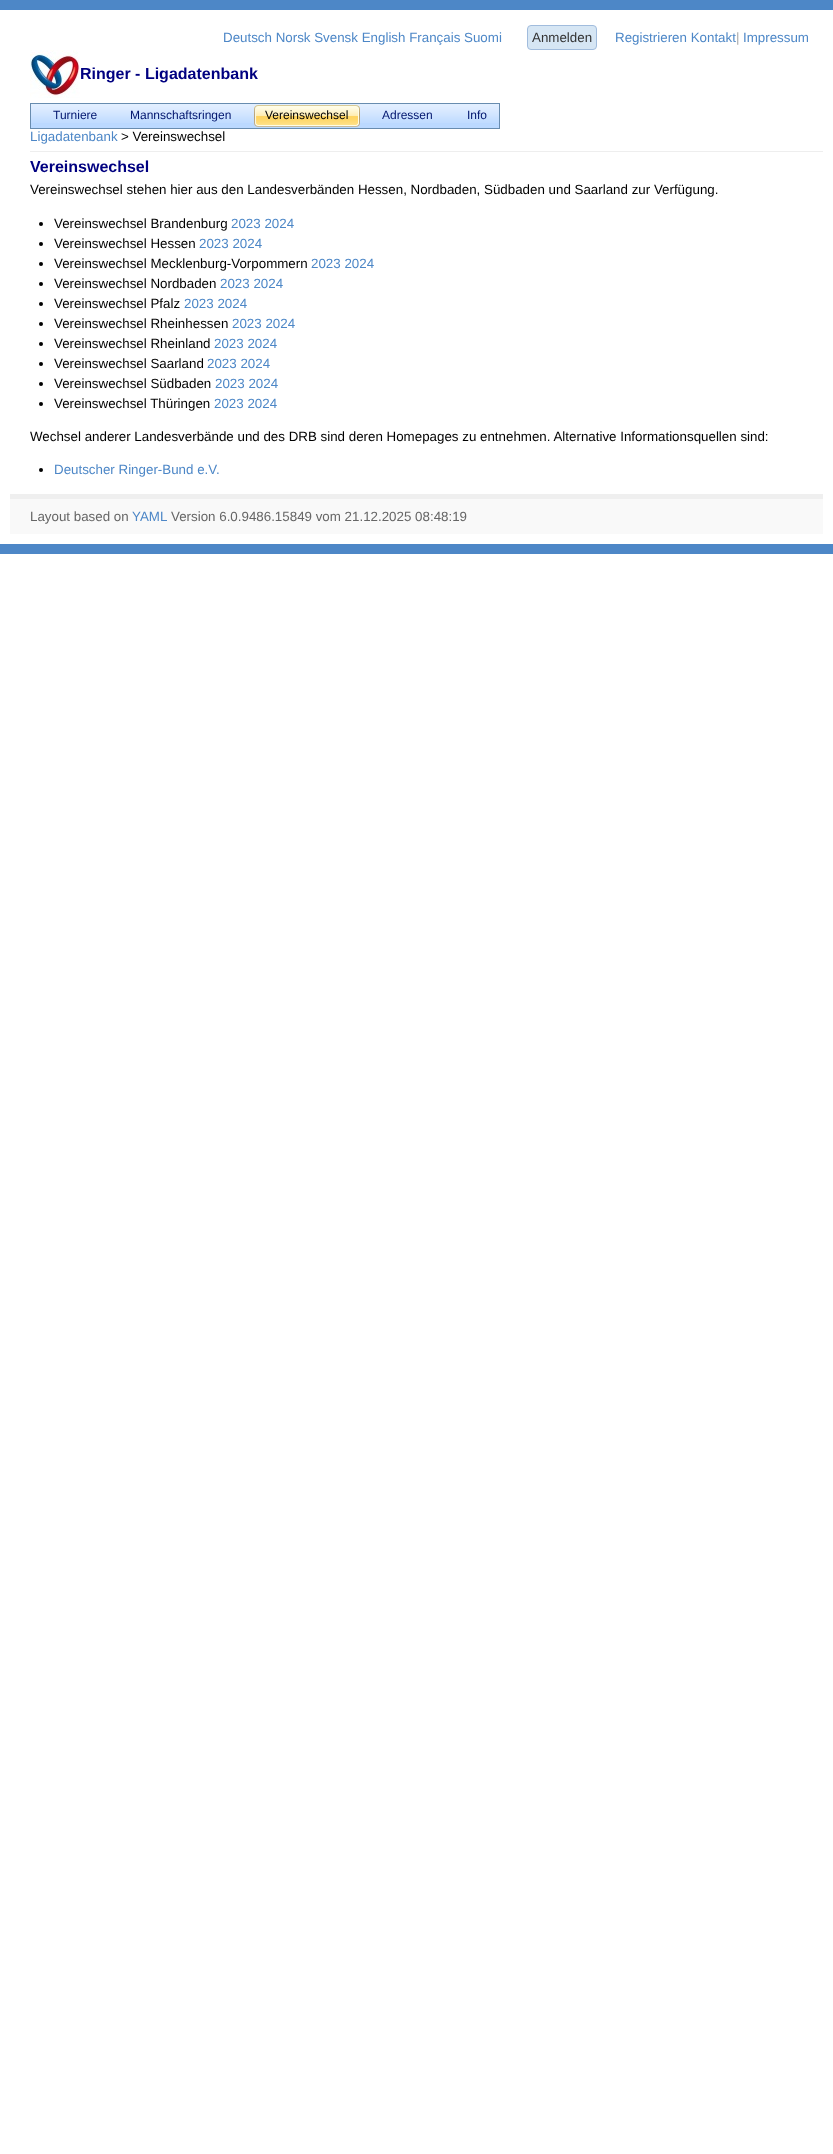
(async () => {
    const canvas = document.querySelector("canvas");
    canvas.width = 833;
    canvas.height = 2154;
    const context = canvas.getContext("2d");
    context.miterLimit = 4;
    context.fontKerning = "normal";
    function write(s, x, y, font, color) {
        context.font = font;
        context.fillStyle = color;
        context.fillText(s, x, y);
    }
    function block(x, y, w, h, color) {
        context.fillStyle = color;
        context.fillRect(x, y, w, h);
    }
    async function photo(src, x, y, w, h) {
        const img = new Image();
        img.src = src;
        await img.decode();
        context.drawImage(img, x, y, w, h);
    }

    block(0, 0, 833, 2154, "rgb(255, 255, 255)");
    block(0, 0, 833, 554, "rgb(77, 135, 199)");
    block(0, 10, 833, 534, "rgb(255, 255, 255)");
    write("Deutsch Norsk Svensk English Français Suomi", 223, 42, "13.35px Liberation Sans", "rgb(77, 135, 199)");
    context.fillStyle = "rgb(214, 230, 244)";
    context.beginPath();
    context.roundRect(527.5, 25.5, 69, 24, 3.5);
    context.fill();
    context.strokeStyle = "rgb(161, 188, 221)";
    context.stroke();
    write("Anmelden", 532, 42, "13.35px Liberation Sans", "rgb(51, 51, 51)");
    write("Registrieren Kontakt", 615, 42, "13.35px Liberation Sans", "rgb(77, 135, 199)");
    write("|", 736, 42, "13.35px Liberation Sans", "rgb(170, 170, 170)");
    write("Impressum", 743, 42, "13.35px Liberation Sans", "rgb(77, 135, 199)");
    await photo("media/1.png", 30, 50, 50, 48);
    write("Ringer - Ligadatenbank", 80, 79, "bold 16px Liberation Sans", "rgb(0, 0, 128)");
    block(31, 123, 468, 5, "rgb(187, 217, 255)");
    await photo("media/2.png", 31, 104, 468, 19);
    context.strokeStyle = "rgb(104, 140, 175)";
    context.strokeRect(30.5, 103.5, 469, 25);
    write("Turniere", 53, 119, "12px Liberation Sans", "rgb(0, 21, 110)");
    write("Mannschaftsringen", 130, 119, "12px Liberation Sans", "rgb(0, 21, 110)");
    await photo("media/3.png", 254, 105, 26, 22);
    await photo("media/4.png", 280, 105, 80, 22);
    write("Vereinswechsel", 265, 119, "12px Liberation Sans", "rgb(0, 0, 0)");
    write("Adressen", 382, 119, "12px Liberation Sans", "rgb(0, 21, 110)");
    write("Info", 467, 119, "12px Liberation Sans", "rgb(0, 21, 110)");
    write("Ligadatenbank", 30, 141, "13.35px Liberation Sans", "rgb(77, 135, 199)");
    write("> Vereinswechsel", 121, 141, "13.35px Liberation Sans", "rgb(0, 0, 0)");
    block(30, 151, 793, 1, "rgb(238, 238, 238)");
    write("Vereinswechsel", 30, 172, "bold 16px Liberation Sans", "rgb(0, 0, 128)");
    write("Vereinswechsel stehen hier aus den Landesverbänden Hessen, Nordbaden, Südbaden und Saarland zur Verfügung.", 30, 194, "13.35px Liberation Sans", "rgb(0, 0, 0)");
    context.beginPath();
    context.arc(41, 224, 2, 0, Math.PI * 2);
    context.fill();
    write("Vereinswechsel Brandenburg", 54, 228, "13.35px Liberation Sans", "rgb(0, 0, 0)");
    write("2023 2024", 231, 228, "13.35px Liberation Sans", "rgb(77, 135, 199)");
    context.fillStyle = "rgb(0, 0, 0)";
    context.beginPath();
    context.arc(41, 244, 2, 0, Math.PI * 2);
    context.fill();
    write("Vereinswechsel Hessen", 54, 248, "13.35px Liberation Sans", "rgb(0, 0, 0)");
    write("2023 2024", 199, 248, "13.35px Liberation Sans", "rgb(77, 135, 199)");
    context.fillStyle = "rgb(0, 0, 0)";
    context.beginPath();
    context.arc(41, 264, 2, 0, Math.PI * 2);
    context.fill();
    write("Vereinswechsel Mecklenburg-Vorpommern", 54, 268, "13.35px Liberation Sans", "rgb(0, 0, 0)");
    write("2023 2024", 311, 268, "13.35px Liberation Sans", "rgb(77, 135, 199)");
    context.fillStyle = "rgb(0, 0, 0)";
    context.beginPath();
    context.arc(41, 284, 2, 0, Math.PI * 2);
    context.fill();
    write("Vereinswechsel Nordbaden", 54, 288, "13.35px Liberation Sans", "rgb(0, 0, 0)");
    write("2023 2024", 220, 288, "13.35px Liberation Sans", "rgb(77, 135, 199)");
    context.fillStyle = "rgb(0, 0, 0)";
    context.beginPath();
    context.arc(41, 304, 2, 0, Math.PI * 2);
    context.fill();
    write("Vereinswechsel Pfalz", 54, 308, "13.35px Liberation Sans", "rgb(0, 0, 0)");
    write("2023 2024", 184, 308, "13.35px Liberation Sans", "rgb(77, 135, 199)");
    context.fillStyle = "rgb(0, 0, 0)";
    context.beginPath();
    context.arc(41, 324, 2, 0, Math.PI * 2);
    context.fill();
    write("Vereinswechsel Rheinhessen", 54, 328, "13.35px Liberation Sans", "rgb(0, 0, 0)");
    write("2023 2024", 232, 328, "13.35px Liberation Sans", "rgb(77, 135, 199)");
    context.fillStyle = "rgb(0, 0, 0)";
    context.beginPath();
    context.arc(41, 344, 2, 0, Math.PI * 2);
    context.fill();
    write("Vereinswechsel Rheinland", 54, 348, "13.35px Liberation Sans", "rgb(0, 0, 0)");
    write("2023 2024", 214, 348, "13.35px Liberation Sans", "rgb(77, 135, 199)");
    context.fillStyle = "rgb(0, 0, 0)";
    context.beginPath();
    context.arc(41, 364, 2, 0, Math.PI * 2);
    context.fill();
    write("Vereinswechsel Saarland", 54, 368, "13.35px Liberation Sans", "rgb(0, 0, 0)");
    write("2023 2024", 207, 368, "13.35px Liberation Sans", "rgb(77, 135, 199)");
    context.fillStyle = "rgb(0, 0, 0)";
    context.beginPath();
    context.arc(41, 384, 2, 0, Math.PI * 2);
    context.fill();
    write("Vereinswechsel Südbaden", 54, 388, "13.35px Liberation Sans", "rgb(0, 0, 0)");
    write("2023 2024", 215, 388, "13.35px Liberation Sans", "rgb(77, 135, 199)");
    context.fillStyle = "rgb(0, 0, 0)";
    context.beginPath();
    context.arc(41, 404, 2, 0, Math.PI * 2);
    context.fill();
    write("Vereinswechsel Thüringen", 54, 408, "13.35px Liberation Sans", "rgb(0, 0, 0)");
    write("2023 2024", 214, 408, "13.35px Liberation Sans", "rgb(77, 135, 199)");
    write("Wechsel anderer Landesverbände und des DRB sind deren Homepages zu entnehmen. Alternative Informationsquellen sind:", 30, 441, "13.35px Liberation Sans", "rgb(0, 0, 0)");
    context.beginPath();
    context.arc(41, 470, 2, 0, Math.PI * 2);
    context.fill();
    write("Deutscher Ringer-Bund e.V.", 54, 474, "13.35px Liberation Sans", "rgb(77, 135, 199)");
    block(10, 499, 813, 35, "rgb(249, 249, 249)");
    block(10, 494, 813, 5, "rgb(239, 239, 239)");
    write("Layout based on", 30, 521, "13.35px Liberation Sans", "rgb(102, 102, 102)");
    write("YAML", 132, 521, "13.35px Liberation Sans", "rgb(77, 135, 199)");
    write("Version 6.0.9486.15849 vom 21.12.2025 08:48:19", 171, 521, "13.35px Liberation Sans", "rgb(102, 102, 102)");
})();
